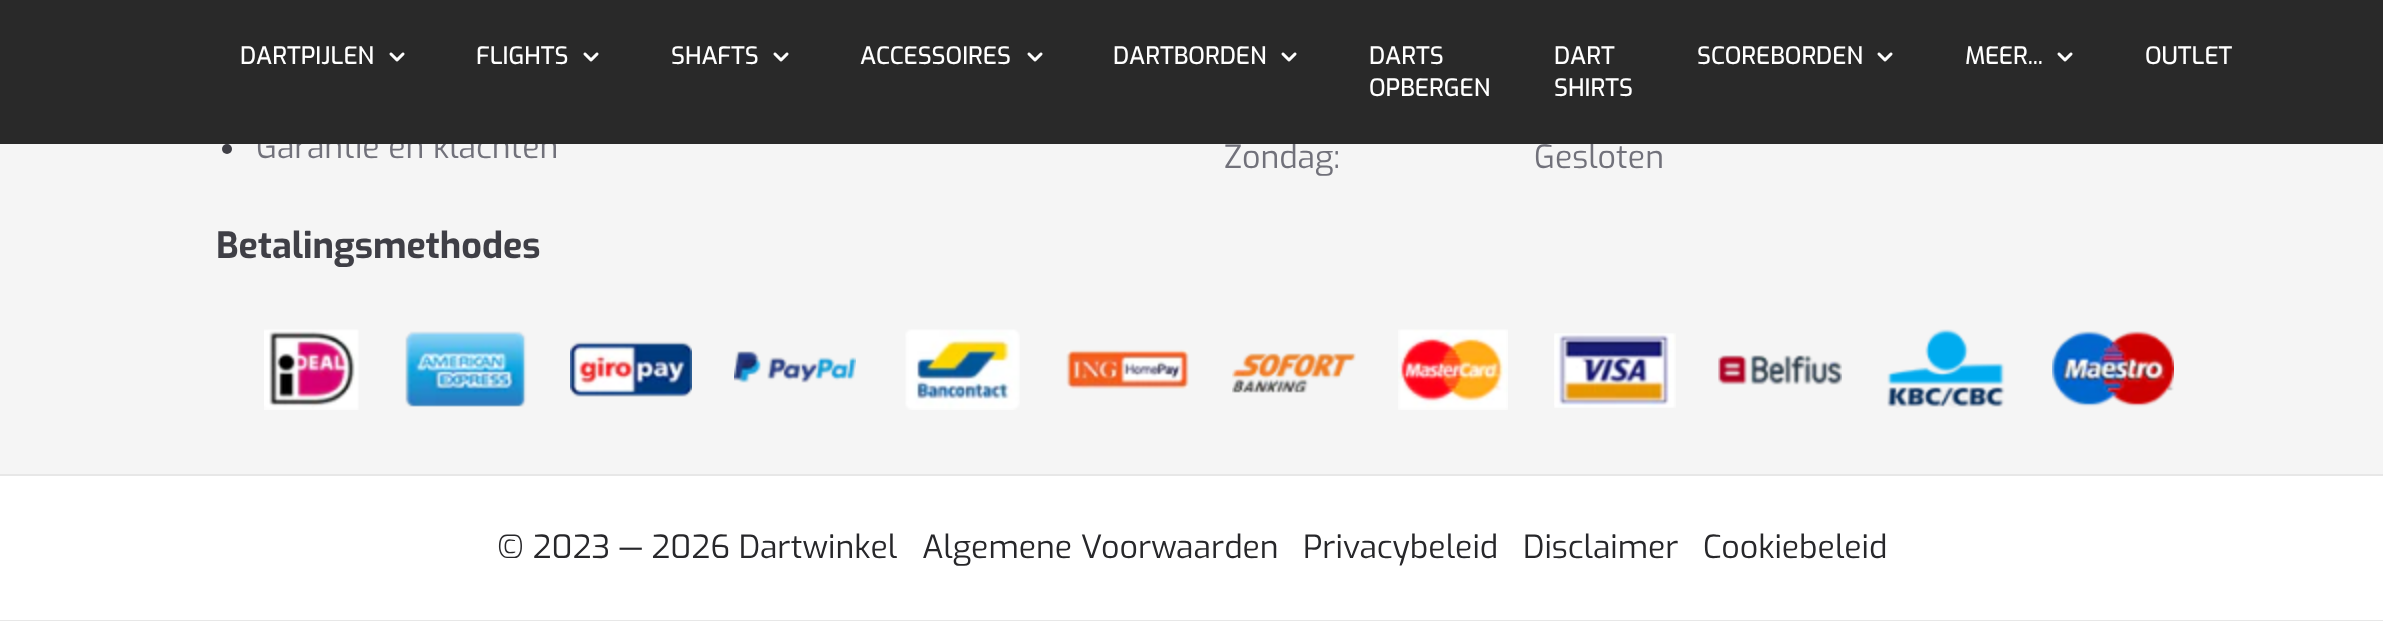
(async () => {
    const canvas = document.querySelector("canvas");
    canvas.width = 2383;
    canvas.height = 621;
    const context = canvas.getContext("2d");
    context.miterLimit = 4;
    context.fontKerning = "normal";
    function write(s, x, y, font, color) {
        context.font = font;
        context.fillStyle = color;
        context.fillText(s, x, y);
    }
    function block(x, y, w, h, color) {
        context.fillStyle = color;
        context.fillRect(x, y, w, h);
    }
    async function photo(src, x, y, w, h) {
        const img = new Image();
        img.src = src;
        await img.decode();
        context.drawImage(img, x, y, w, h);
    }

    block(0, 0, 2383, 621, "rgb(245, 245, 245)");
    write("Garantie en klachten", 256, 158, "32px Exo", "rgb(113, 113, 122)");
    write("Zondag:", 1224, 168, "32px Exo", "rgb(113, 113, 122)");
    write("Gesloten", 1534, 168, "32px Exo", "rgb(113, 113, 122)");
    block(0, 0, 2383, 144, "rgb(41, 41, 41)");
    write("DARTPIJLEN", 240, 64, "500 24px Exo", "rgb(255, 255, 255)");
    await photo("media/1.png", 389, 52, 16, 10);
    write("FLIGHTS", 476, 64, "500 24px Exo", "rgb(255, 255, 255)");
    await photo("media/1.png", 583, 52, 16, 10);
    write("SHAFTS", 671, 64, "500 24px Exo", "rgb(255, 255, 255)");
    await photo("media/1.png", 773, 52, 16, 10);
    write("ACCESSOIRES", 860, 64, "500 24px Exo", "rgb(255, 255, 255)");
    await photo("media/1.png", 1027, 52, 16, 10);
    write("DARTBORDEN", 1113, 64, "500 24px Exo", "rgb(255, 255, 255)");
    await photo("media/1.png", 1281, 52, 16, 10);
    write("DARTS", 1369, 64, "500 24px Exo", "rgb(255, 255, 255)");
    write("OPBERGEN", 1369, 96, "500 24px Exo", "rgb(255, 255, 255)");
    write("DART", 1554, 64, "500 24px Exo", "rgb(255, 255, 255)");
    write("SHIRTS", 1554, 96, "500 24px Exo", "rgb(255, 255, 255)");
    write("SCOREBORDEN", 1697, 64, "500 24px Exo", "rgb(255, 255, 255)");
    await photo("media/1.png", 1877, 52, 16, 10);
    write("MEER...", 1965, 64, "500 24px Exo", "rgb(255, 255, 255)");
    await photo("media/1.png", 2057, 52, 16, 10);
    write("OUTLET", 2145, 64, "500 24px Exo", "rgb(255, 255, 255)");
    context.fillStyle = "rgb(63, 63, 70)";
    context.beginPath();
    context.arc(227, 149, 5, 0, Math.PI * 2);
    context.fill();
    write("Betalingsmethodes", 216, 258, "bold 36px Exo", "rgb(63, 63, 70)");
    await photo("media/2.png", 264, 329, 95, 81);
    await photo("media/3.png", 405, 331, 122, 76);
    await photo("media/4.png", 570, 341, 122, 56);
    await photo("media/5.png", 734, 351, 122, 32);
    await photo("media/6.png", 905, 329, 115, 81);
    await photo("media/7.png", 1066, 349, 123, 40);
    await photo("media/8.png", 1232, 353, 124, 40);
    await photo("media/9.png", 1398, 329, 110, 81);
    await photo("media/10.png", 1554, 333, 122, 75);
    await photo("media/11.png", 1718, 355, 124, 30);
    await photo("media/12.png", 1887, 329, 118, 79);
    await photo("media/13.png", 2052, 331, 122, 76);
    block(0, 476, 2383, 144, "rgb(255, 255, 255)");
    block(0, 474, 2383, 2, "rgb(231, 231, 231)");
    block(0, 620, 2383, 1, "rgb(231, 231, 231)");
    write("© 2023 — 2026 Dartwinkel", 497, 558, "32px Exo", "rgb(39, 39, 42)");
    write("Algemene Voorwaarden", 922, 558, "32px Exo", "rgb(39, 39, 42)");
    write("Privacybeleid", 1303, 558, "32px Exo", "rgb(39, 39, 42)");
    write("Disclaimer", 1523, 558, "32px Exo", "rgb(39, 39, 42)");
    write("Cookiebeleid", 1703, 558, "32px Exo", "rgb(39, 39, 42)");
})();
